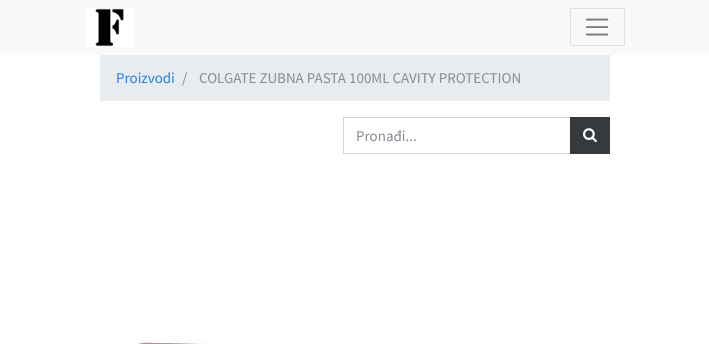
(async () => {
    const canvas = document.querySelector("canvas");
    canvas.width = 709;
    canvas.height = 344;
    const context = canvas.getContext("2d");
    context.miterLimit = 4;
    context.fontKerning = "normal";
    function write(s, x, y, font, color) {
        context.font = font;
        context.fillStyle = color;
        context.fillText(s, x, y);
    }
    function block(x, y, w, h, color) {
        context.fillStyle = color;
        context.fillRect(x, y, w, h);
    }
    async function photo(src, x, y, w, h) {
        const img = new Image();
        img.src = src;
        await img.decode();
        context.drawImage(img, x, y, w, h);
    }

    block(0, 0, 709, 344, "rgb(255, 255, 255)");
    block(0, 0, 709, 55, "rgb(248, 249, 250)");
    await photo("media/1.png", 85, 8, 49, 39);
    context.strokeStyle = "rgb(223, 224, 225)";
    context.strokeRect(570.5, 8.5, 54, 37);
    await photo("media/2.png", 585, 18, 24, 18);
    block(100, 55, 510, 46, "rgb(233, 236, 239)");
    write("Proizvodi", 116, 83, "15px Source Sans Pro", "rgb(39, 128, 227)");
    write("/", 182, 83, "15px Source Sans Pro", "rgb(134, 142, 150)");
    write("COLGATE ZUBNA PASTA 100ML CAVITY PROTECTION", 199, 83, "15px Source Sans Pro", "rgb(134, 142, 150)");
    context.strokeStyle = "rgb(206, 212, 218)";
    context.strokeRect(343.5, 117.5, 227, 36);
    write("Pronađi...", 356, 141, "15px Source Sans Pro", "rgb(134, 142, 150)");
    block(570, 117, 40, 37, "rgb(55, 58, 60)");
    await photo("media/3.png", 583, 128, 14, 15);
    await photo("media/4.png", 134, 339, 105, 5);
})();
